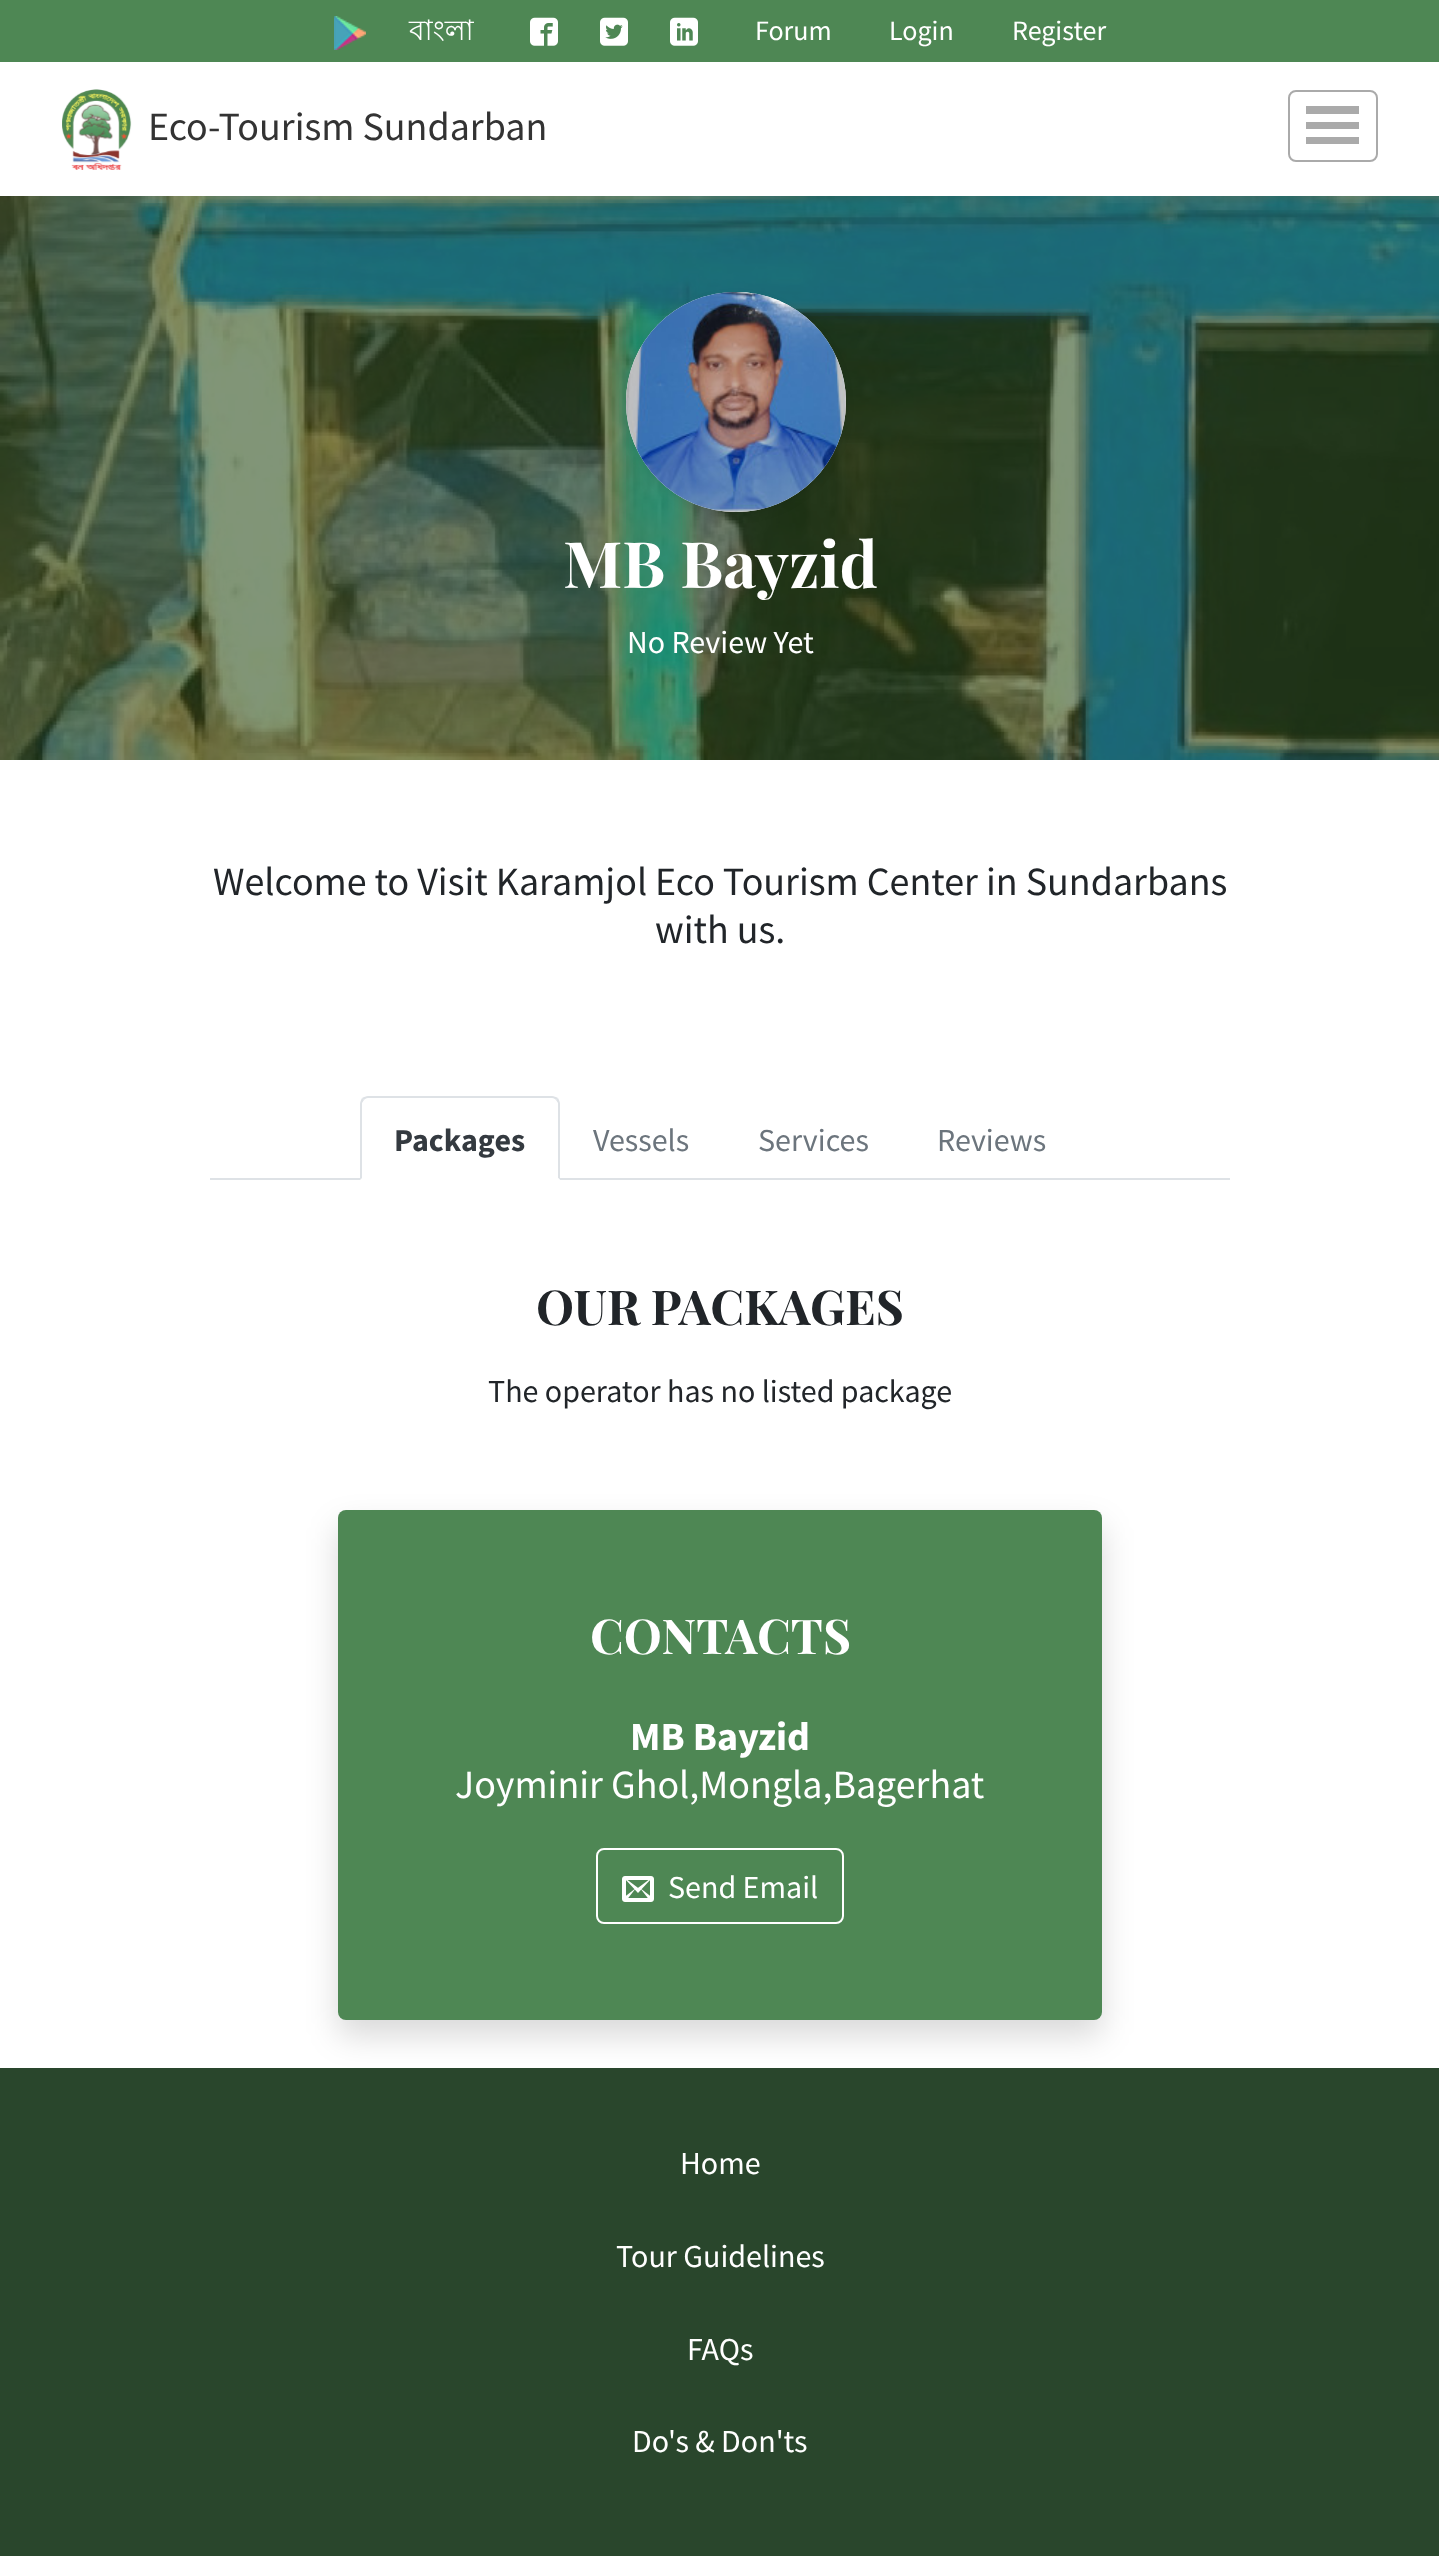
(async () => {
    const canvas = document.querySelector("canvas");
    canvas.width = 1439;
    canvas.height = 2556;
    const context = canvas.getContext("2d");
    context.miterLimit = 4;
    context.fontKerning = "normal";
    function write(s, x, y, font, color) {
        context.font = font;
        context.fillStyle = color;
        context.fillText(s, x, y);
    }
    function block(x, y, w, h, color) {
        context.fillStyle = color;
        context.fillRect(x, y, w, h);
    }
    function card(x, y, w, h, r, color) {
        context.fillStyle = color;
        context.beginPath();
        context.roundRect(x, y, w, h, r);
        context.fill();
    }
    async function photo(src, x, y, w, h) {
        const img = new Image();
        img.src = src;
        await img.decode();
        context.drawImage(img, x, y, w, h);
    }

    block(0, 0, 1439, 2556, "rgb(255, 255, 255)");
    block(0, 0, 1439, 62, "rgb(78, 135, 84)");
    await photo("media/1.png", 334, 16, 32, 34);
    write("বাংলা", 409, 40, "28px Lohit Bengali", "rgb(255, 255, 255)");
    await photo("media/2.png", 530, 17, 28, 29);
    await photo("media/3.png", 600, 17, 28, 29);
    await photo("media/4.png", 670, 17, 28, 29);
    write("Forum", 755, 40, "28px Source Sans Pro", "rgb(255, 255, 255)");
    write("Login", 889, 40, "28px Source Sans Pro", "rgb(255, 255, 255)");
    write("Register", 1012, 40, "28px Source Sans Pro", "rgb(255, 255, 255)");
    await photo("media/5.png", 62, 89, 70, 81);
    write("Eco-Tourism Sundarban", 148, 140, "40px Source Sans Pro", "rgb(51, 51, 51)");
    context.beginPath();
    context.roundRect(1289, 91, 88, 70, 7);
    context.strokeStyle = "rgb(170, 170, 170)";
    context.lineWidth = 2;
    context.stroke();
    context.fillStyle = "rgb(170, 170, 170)";
    context.beginPath();
    context.moveTo(1306, 106);
    context.lineTo(1359, 106);
    context.lineTo(1359, 114);
    context.lineTo(1306, 114);
    context.closePath();
    context.moveTo(1306, 122);
    context.lineTo(1359, 122);
    context.lineTo(1359, 129);
    context.lineTo(1306, 129);
    context.closePath();
    context.moveTo(1306, 137);
    context.lineTo(1359, 137);
    context.lineTo(1359, 144);
    context.lineTo(1306, 144);
    context.closePath();
    context.fill();
    await photo("media/6.png", 0, 196, 1439, 564);
    context.fillStyle = "rgba(0, 0, 0, 0.07)";
    context.filter = "blur(4px)";
    context.beginPath();
    context.roundRect(626, 296, 220, 220, 110);
    context.fill();
    context.filter = "none";
    context.fillStyle = "rgb(255, 255, 255)";
    context.beginPath();
    context.arc(736, 402, 110, 0, Math.PI * 2);
    context.fill();
    await photo("media/7.png", 626, 292, 220, 220);
    write("MB Bayzid", 563, 588, "bold 64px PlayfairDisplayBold", "rgb(255, 255, 255)");
    write("No Review Yet", 627, 653, "32px Source Sans Pro", "rgb(255, 255, 255)");
    write("Welcome to Visit Karamjol Eco Tourism Center in Sundarbans", 213, 895, "40px Source Sans Pro", "rgb(33, 37, 41)");
    write("with us.", 655, 943, "40px Source Sans Pro", "rgb(33, 37, 41)");
    block(210, 1178, 1020, 2, "rgb(222, 226, 230)");
    context.fillStyle = "rgb(255, 255, 255)";
    context.beginPath();
    context.roundRect(360, 1096, 200, 84, [8, 8, 0, 0]);
    context.fill();
    context.fillStyle = "rgb(222, 226, 230)";
    context.beginPath();
    context.moveTo(368, 1096);
    context.bezierCurveTo(366, 1096, 364, 1097, 362, 1098);
    context.lineTo(364, 1100);
    context.bezierCurveTo(365, 1099, 366, 1098, 368, 1098);
    context.lineTo(552, 1098);
    context.bezierCurveTo(554, 1098, 555, 1099, 556, 1100);
    context.lineTo(558, 1098);
    context.bezierCurveTo(556, 1097, 554, 1096, 552, 1096);
    context.closePath();
    context.fill();
    context.beginPath();
    context.moveTo(560, 1180);
    context.lineTo(560, 1104);
    context.bezierCurveTo(560, 1102, 559, 1100, 558, 1098);
    context.lineTo(556, 1100);
    context.lineTo(558, 1103);
    context.lineTo(558, 1178);
    context.closePath();
    context.fill();
    context.fillStyle = "rgb(255, 255, 255)";
    context.beginPath();
    context.moveTo(560, 1180);
    context.lineTo(558, 1178);
    context.lineTo(362, 1178);
    context.lineTo(360, 1180);
    context.closePath();
    context.fill();
    context.fillStyle = "rgb(222, 226, 230)";
    context.beginPath();
    context.moveTo(360, 1180);
    context.lineTo(362, 1178);
    context.lineTo(362, 1103);
    context.lineTo(364, 1100);
    context.lineTo(362, 1098);
    context.bezierCurveTo(361, 1100, 360, 1102, 360, 1104);
    context.closePath();
    context.fill();
    write("Packages", 394, 1151, "bold 32px Source Sans Pro", "rgb(52, 58, 64)");
    write("Vessels", 593, 1151, "32px Source Sans Pro", "rgb(108, 117, 125)");
    write("Services", 758, 1151, "32px Source Sans Pro", "rgb(108, 117, 125)");
    write("Reviews", 937, 1151, "32px Source Sans Pro", "rgb(108, 117, 125)");
    write("OUR PACKAGES", 536, 1325, "bold 48px PlayfairDisplayBold", "rgb(33, 37, 41)");
    write("The operator has no listed package", 488, 1402, "32px Source Sans Pro", "rgb(33, 37, 41)");
    block(0, 2068, 1439, 488, "rgb(41, 70, 44)");
    context.fillStyle = "rgba(0, 0, 0, 0.15)";
    context.filter = "blur(16px)";
    context.beginPath();
    context.roundRect(338, 1526, 764, 510, 8);
    context.fill();
    context.filter = "none";
    card(338, 1510, 764, 510, 8, "rgb(78, 135, 84)");
    write("CONTACTS", 590, 1654, "bold 48px PlayfairDisplayBold", "rgb(255, 255, 255)");
    write("MB Bayzid", 630, 1750, "bold 40px Source Sans Pro", "rgb(255, 255, 255)");
    write("Joyminir Ghol,Mongla,Bagerhat", 455, 1798, "40px Source Sans Pro", "rgb(255, 255, 255)");
    context.beginPath();
    context.roundRect(597, 1849, 246, 74, 7);
    context.strokeStyle = "rgb(255, 255, 255)";
    context.stroke();
    await photo("media/8.png", 622, 1876, 32, 26);
    write("Send Email", 668, 1898, "32px Source Sans Pro", "rgb(255, 255, 255)");
    write("Home", 680, 2174, "32px Source Sans Pro", "rgb(255, 255, 255)");
    write("Tour Guidelines", 616, 2267, "32px Source Sans Pro", "rgb(255, 255, 255)");
    write("FAQs", 687, 2360, "32px Source Sans Pro", "rgb(255, 255, 255)");
    write("Do's & Don'ts", 632, 2452, "32px Source Sans Pro", "rgb(255, 255, 255)");
})();
